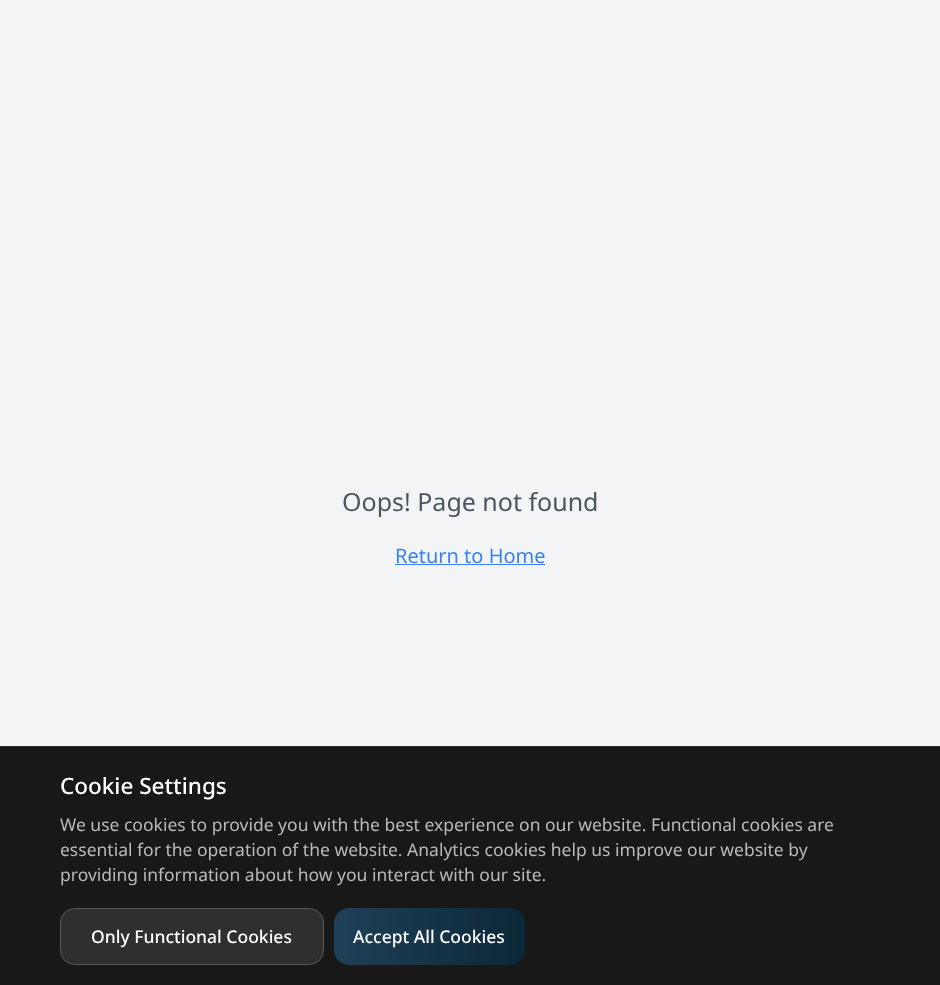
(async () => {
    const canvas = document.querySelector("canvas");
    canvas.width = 940;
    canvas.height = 985;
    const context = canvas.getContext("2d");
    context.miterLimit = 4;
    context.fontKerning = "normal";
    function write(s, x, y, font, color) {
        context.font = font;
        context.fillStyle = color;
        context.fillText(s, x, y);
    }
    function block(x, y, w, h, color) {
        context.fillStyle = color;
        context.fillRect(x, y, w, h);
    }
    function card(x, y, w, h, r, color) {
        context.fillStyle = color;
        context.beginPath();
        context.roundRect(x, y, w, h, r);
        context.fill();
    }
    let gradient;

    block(0, 0, 940, 985, "rgb(243, 244, 246)");
    write("Oops! Page not found", 342, 511, "25px Noto Sans", "rgb(75, 85, 99)");
    write("Return to Home", 395, 563, "20px Noto Sans", "rgb(59, 130, 246)");
    block(395, 564, 150, 1, "rgb(59, 130, 246)");
    block(0, 747, 940, 238, "rgb(24, 24, 25)");
    block(0, 746, 940, 1, "rgb(47, 47, 48)");
    write("Cookie Settings", 60, 794, "500 22.5px Noto Sans", "rgb(255, 255, 255)");
    write("We use cookies to provide you with the best experience on our website. Functional cookies are", 60, 831, "17.5px Noto Sans", "rgb(186, 186, 186)");
    write("essential for the operation of the website. Analytics cookies help us improve our website by", 60, 856, "17.5px Noto Sans", "rgb(186, 186, 186)");
    write("providing information about how you interact with our site.", 60, 881, "17.5px Noto Sans", "rgb(186, 186, 186)");
    card(60, 908, 264, 57, 15, "rgb(47, 47, 48)");
    context.beginPath();
    context.roundRect(60.5, 908.5, 263, 56, 14.5);
    context.strokeStyle = "rgba(255, 255, 255, 0.2)";
    context.stroke();
    write("Only Functional Cookies", 91, 943, "500 17.5px Noto Sans", "rgb(255, 255, 255)");
    gradient = context.createLinearGradient(334, 936, 525, 936);
    gradient.addColorStop(0, "rgb(31, 64, 88)");
    gradient.addColorStop(1, "rgb(11, 40, 56)");
    context.fillStyle = gradient;
    context.beginPath();
    context.roundRect(334, 908, 191, 57, 15);
    context.fill();
    write("Accept All Cookies", 353, 943, "500 17.5px Noto Sans", "rgb(255, 255, 255)");
})();
